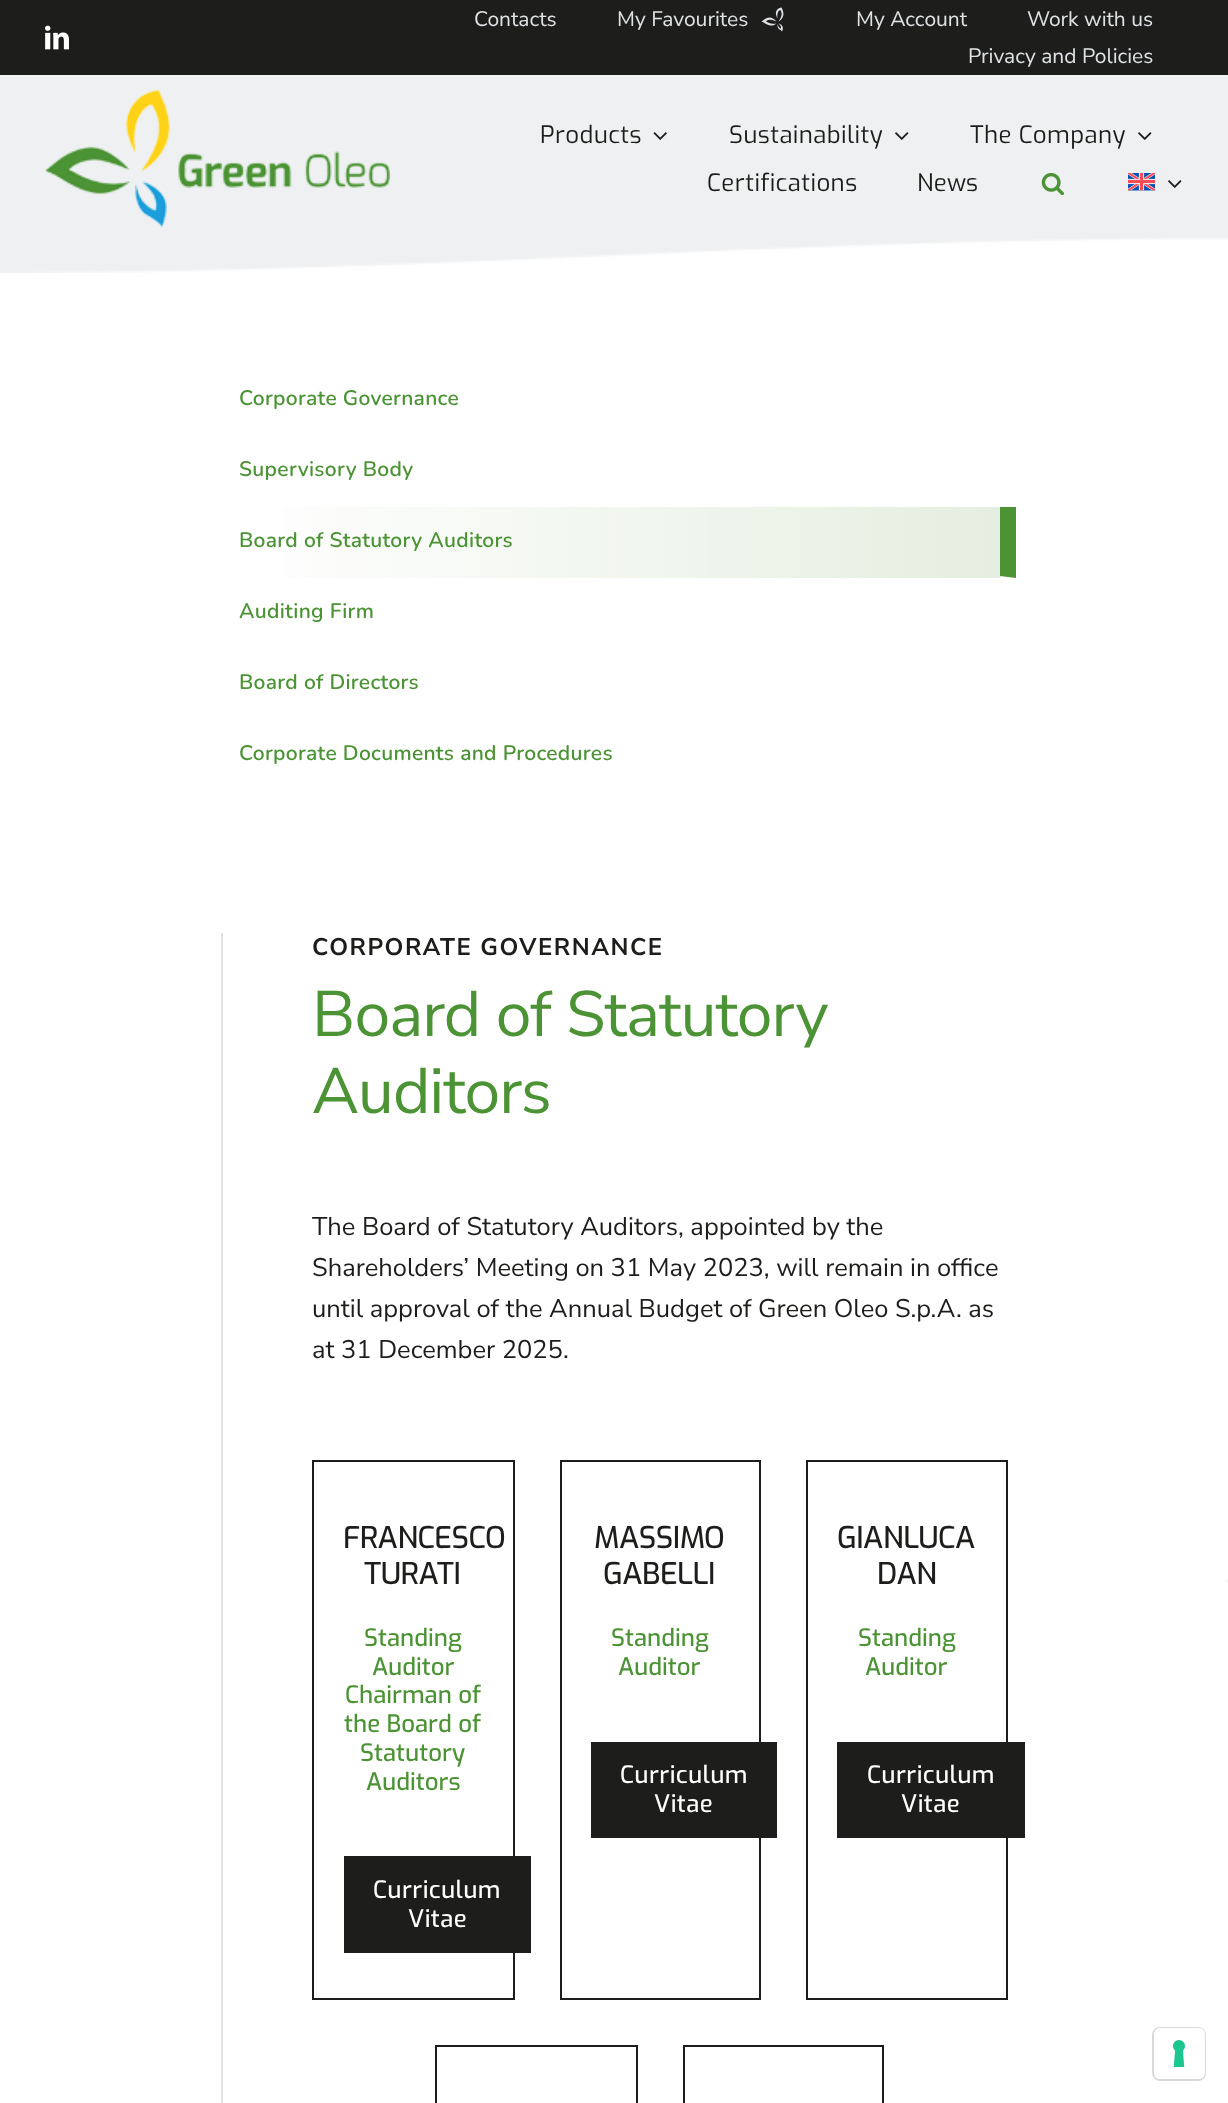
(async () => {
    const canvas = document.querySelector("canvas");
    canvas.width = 1228;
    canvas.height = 2103;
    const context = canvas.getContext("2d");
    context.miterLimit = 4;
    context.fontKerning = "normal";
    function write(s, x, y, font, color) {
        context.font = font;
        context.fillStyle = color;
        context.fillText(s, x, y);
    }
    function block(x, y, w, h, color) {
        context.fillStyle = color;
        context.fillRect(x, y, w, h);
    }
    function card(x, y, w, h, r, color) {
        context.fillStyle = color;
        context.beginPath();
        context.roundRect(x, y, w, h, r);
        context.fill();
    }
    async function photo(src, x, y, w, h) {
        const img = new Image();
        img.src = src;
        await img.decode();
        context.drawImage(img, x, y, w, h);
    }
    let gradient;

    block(0, 0, 1228, 2103, "rgb(255, 255, 255)");
    block(0, 0, 1228, 75, "rgb(29, 29, 27)");
    await photo("media/1.png", 45, 25, 24, 25);
    write("Contacts", 474, 26, "21px Nunito Sans", "rgb(223, 226, 229)");
    write("My Favourites", 617, 26, "21px Nunito Sans", "rgb(223, 226, 229)");
    await photo("media/2.png", 761, 7, 23, 25);
    write("My Account", 856, 26, "21px Nunito Sans", "rgb(223, 226, 229)");
    write("Work with us", 1027, 26, "21px Nunito Sans", "rgb(223, 226, 229)");
    write("Privacy and Policies", 968, 63, "21px Nunito Sans", "rgb(223, 226, 229)");
    await photo("media/3.png", 0, 75, 1228, 198);
    await photo("media/4.png", 45, 90, 345, 138);
    context.letterSpacing = "0.4px";
    write("Products", 540, 143, "24px Exo", "rgb(29, 29, 27)");
    await photo("media/5.png", 653, 132, 14, 8);
    write("Sustainability", 729, 143, "24px Exo", "rgb(29, 29, 27)");
    await photo("media/6.png", 895, 132, 14, 8);
    write("The Company", 970, 143, "24px Exo", "rgb(29, 29, 27)");
    await photo("media/6.png", 1138, 132, 14, 8);
    write("Certifications", 707, 191, "24px Exo", "rgb(29, 29, 27)");
    write("News", 917, 191, "24px Exo", "rgb(29, 29, 27)");
    await photo("media/7.png", 1041, 172, 23, 23);
    await photo("media/8.png", 1128, 173, 27, 18);
    await photo("media/6.png", 1168, 180, 14, 8);
    await photo("media/9.png", 1225, 1579, 3, 4);
    context.letterSpacing = "0.3px";
    write("Corporate Governance", 239, 405, "600 21px Nunito", "rgb(75, 147, 52)");
    write("Supervisory Body", 239, 476, "600 21px Nunito", "rgb(75, 147, 52)");
    gradient = context.createLinearGradient(221, 542, 1001, 542);
    gradient.addColorStop(0, "rgb(255, 255, 255)");
    gradient.addColorStop(1, "rgb(229, 238, 224)");
    context.fillStyle = gradient;
    context.fillRect(284, 507, 717, 71);
    context.fillStyle = "rgb(75, 147, 52)";
    context.beginPath();
    context.moveTo(1016, 507);
    context.lineTo(1016, 578);
    context.lineTo(1000, 576);
    context.lineTo(1000, 507);
    context.closePath();
    context.fill();
    write("Board of Statutory Auditors", 239, 547, "600 21px Nunito", "rgb(75, 147, 52)");
    write("Auditing Firm", 239, 618, "600 21px Nunito", "rgb(75, 147, 52)");
    write("Board of Directors", 239, 689, "600 21px Nunito", "rgb(75, 147, 52)");
    write("Corporate Documents and Procedures", 239, 760, "600 21px Nunito", "rgb(75, 147, 52)");
    block(221, 933, 2, 1170, "rgb(223, 226, 229)");
    context.letterSpacing = "1.5px";
    write("CORPORATE GOVERNANCE", 312, 955, "bold 24px Nunito Sans", "rgb(29, 29, 27)");
    context.letterSpacing = "-1px";
    write("Board of Statutory", 312, 1036, "64.25px Nunito Sans", "rgb(75, 147, 52)");
    write("Auditors", 312, 1113, "64.25px Nunito Sans", "rgb(75, 147, 52)");
    context.letterSpacing = "0px";
    write("The Board of Statutory Auditors, appointed by the", 312, 1235, "25.5px Nunito Sans", "rgb(29, 29, 27)");
    write("Shareholders’ Meeting on 31 May 2023, will remain in office", 312, 1276, "25.5px Nunito Sans", "rgb(29, 29, 27)");
    write("until approval of the Annual Budget of Green Oleo S.p.A. as", 312, 1317, "25.5px Nunito Sans", "rgb(29, 29, 27)");
    write("at 31 December 2025.", 312, 1358, "25.5px Nunito Sans", "rgb(29, 29, 27)");
    context.strokeStyle = "rgb(29, 29, 27)";
    context.lineWidth = 2;
    context.strokeRect(313, 1461, 201, 538);
    context.letterSpacing = "-0.5px";
    write("FRANCESCO", 343, 1548, "500 30px Exo", "rgb(29, 29, 27)");
    write("TURATI", 364, 1584, "500 30px Exo", "rgb(29, 29, 27)");
    context.letterSpacing = "0px";
    write("Standing", 364, 1646, "500 24px Exo", "rgb(75, 147, 52)");
    write("Auditor", 372, 1675, "500 24px Exo", "rgb(75, 147, 52)");
    write("Chairman of", 345, 1703, "500 24px Exo", "rgb(75, 147, 52)");
    write("the Board of", 344, 1732, "500 24px Exo", "rgb(75, 147, 52)");
    write("Statutory", 360, 1761, "500 24px Exo", "rgb(75, 147, 52)");
    write("Auditors", 366, 1790, "500 24px Exo", "rgb(75, 147, 52)");
    block(344, 1856, 187, 97, "rgb(29, 29, 27)");
    context.letterSpacing = "0.4px";
    write("Curriculum", 373, 1898, "500 24px Exo", "rgb(255, 255, 255)");
    write("Vitae", 408, 1927, "500 24px Exo", "rgb(255, 255, 255)");
    context.strokeRect(561, 1461, 199, 538);
    context.letterSpacing = "-0.5px";
    write("MASSIMO", 594, 1548, "500 30px Exo", "rgb(29, 29, 27)");
    write("GABELLI", 603, 1584, "500 30px Exo", "rgb(29, 29, 27)");
    context.letterSpacing = "0px";
    write("Standing", 611, 1646, "500 24px Exo", "rgb(75, 147, 52)");
    write("Auditor", 618, 1675, "500 24px Exo", "rgb(75, 147, 52)");
    block(591, 1742, 186, 96, "rgb(29, 29, 27)");
    context.letterSpacing = "0.4px";
    write("Curriculum", 620, 1783, "500 24px Exo", "rgb(255, 255, 255)");
    write("Vitae", 654, 1812, "500 24px Exo", "rgb(255, 255, 255)");
    context.strokeRect(807, 1461, 200, 538);
    context.letterSpacing = "-0.5px";
    write("GIANLUCA", 837, 1548, "500 30px Exo", "rgb(29, 29, 27)");
    write("DAN", 877, 1584, "500 30px Exo", "rgb(29, 29, 27)");
    context.letterSpacing = "0px";
    write("Standing", 858, 1646, "500 24px Exo", "rgb(75, 147, 52)");
    write("Auditor", 865, 1675, "500 24px Exo", "rgb(75, 147, 52)");
    block(837, 1742, 188, 96, "rgb(29, 29, 27)");
    context.letterSpacing = "0.4px";
    write("Curriculum", 867, 1783, "500 24px Exo", "rgb(255, 255, 255)");
    write("Vitae", 901, 1812, "500 24px Exo", "rgb(255, 255, 255)");
    context.strokeRect(436, 2046, 201, 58);
    context.strokeRect(684, 2046, 199, 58);
    context.beginPath();
    context.roundRect(1153, 2028, 52, 52, 7);
    context.strokeStyle = "rgb(217, 217, 217)";
    context.stroke();
    card(1154, 2028, 51, 51, 6, "rgb(255, 255, 255)");
    await photo("media/10.png", 1173, 2040, 12, 27);
})();
